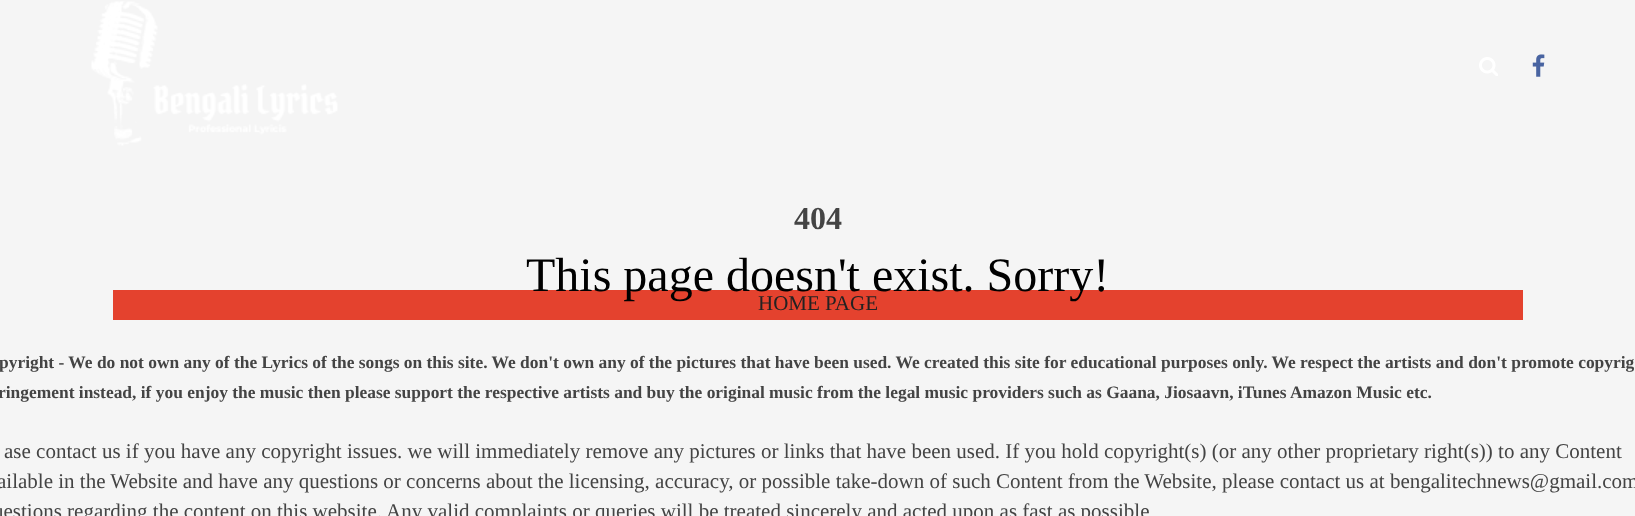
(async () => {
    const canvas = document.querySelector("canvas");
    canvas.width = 1635;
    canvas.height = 516;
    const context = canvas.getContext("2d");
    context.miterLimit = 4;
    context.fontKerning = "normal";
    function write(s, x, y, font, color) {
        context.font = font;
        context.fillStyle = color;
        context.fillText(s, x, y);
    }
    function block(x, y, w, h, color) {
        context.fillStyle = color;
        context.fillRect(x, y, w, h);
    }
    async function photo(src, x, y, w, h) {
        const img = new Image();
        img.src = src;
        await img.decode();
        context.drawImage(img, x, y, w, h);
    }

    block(0, 0, 1635, 516, "rgb(245, 245, 245)");
    await photo("media/1.png", 91, 1, 247, 145);
    await photo("media/2.png", 1479, 57, 19, 19);
    await photo("media/3.png", 1532, 54, 13, 23);
    write("404", 794, 229, "bold 32px Liberation Serif", "rgb(68, 68, 68)");
    block(113, 290, 1410, 30, "rgb(228, 66, 46)");
    write("This page doesn't exist. Sorry!", 526, 291, "48px Liberation Serif", "rgb(0, 0, 0)");
    write("HOME PAGE", 758, 310, "21px Liberation Serif", "rgb(34, 34, 34)");
    write("pyright - We do not own any of the Lyrics of the songs on this site. We don't own any of the pictures that have been used. We created this site for educational purposes only. We respect the artists and don't promote copyrig", -1, 368, "bold 17.43px Liberation Serif", "rgb(68, 68, 68)");
    write("ringement instead, if you enjoy the music then please support the respective artists and buy the original music from the legal music providers such as Gaana, Jiosaavn, iTunes Amazon Music etc.", -2, 398, "bold 17.43px Liberation Serif", "rgb(68, 68, 68)");
    write("ase contact us if you have any copyright issues. we will immediately remove any pictures or links that have been used. If you hold copyright(s) (or any other proprietary right(s)) to any Content", 4, 458, "21px Liberation Serif", "rgb(68, 68, 68)");
    write("ailable in the Website and have any questions or concerns about the licensing, accuracy, or possible take-down of such Content from the Website, please contact us at bengalitechnews@gmail.com", -3, 488, "21px Liberation Serif", "rgb(68, 68, 68)");
    write("uestions regarding the content on this website. Any valid complaints or queries will be treated sincerely and acted upon as fast as possible", -7, 518, "21px Liberation Serif", "rgb(68, 68, 68)");
})();
